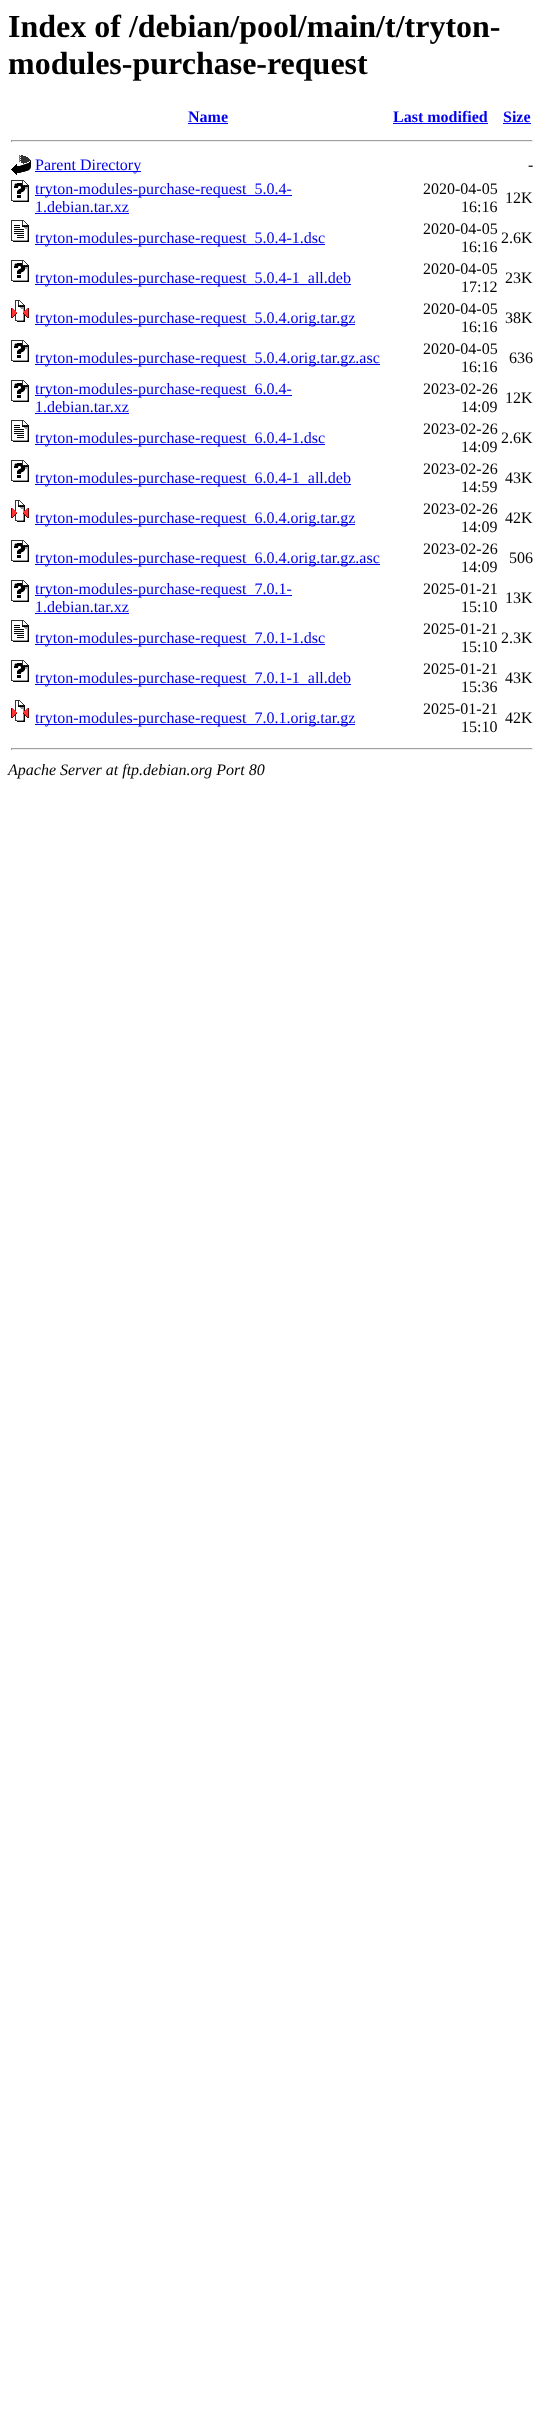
(async () => {
    const canvas = document.querySelector("canvas");
    canvas.width = 544;
    canvas.height = 2419;
    const context = canvas.getContext("2d");
    context.miterLimit = 4;
    context.fontKerning = "normal";
    function write(s, x, y, font, color) {
        context.font = font;
        context.fillStyle = color;
        context.fillText(s, x, y);
    }
    function block(x, y, w, h, color) {
        context.fillStyle = color;
        context.fillRect(x, y, w, h);
    }
    async function photo(src, x, y, w, h) {
        const img = new Image();
        img.src = src;
        await img.decode();
        context.drawImage(img, x, y, w, h);
    }

    block(0, 0, 544, 2419, "rgb(255, 255, 255)");
    write("Index of /debian/pool/main/t/tryton-", 8, 37, "bold 32px Liberation Serif", "rgb(0, 0, 0)");
    write("modules-purchase-request", 8, 74, "bold 32px Liberation Serif", "rgb(0, 0, 0)");
    write("Name", 188, 122, "bold 16px Liberation Serif", "rgb(0, 0, 238)");
    block(188, 123, 40, 1, "rgb(0, 0, 238)");
    write("Last modified", 393, 122, "bold 16px Liberation Serif", "rgb(0, 0, 238)");
    block(393, 123, 95, 1, "rgb(0, 0, 238)");
    write("Size", 503, 122, "bold 16px Liberation Serif", "rgb(0, 0, 238)");
    block(503, 123, 28, 1, "rgb(0, 0, 238)");
    block(11, 140, 522, 1, "rgb(159, 159, 159)");
    block(532, 140, 1, 2, "rgb(238, 238, 238)");
    block(11, 141, 522, 1, "rgb(238, 238, 238)");
    block(11, 140, 1, 2, "rgb(159, 159, 159)");
    await photo("media/1.png", 11, 155, 20, 20);
    block(35, 171, 106, 1, "rgb(0, 0, 238)");
    write("Parent Directory", 35, 170, "16px Liberation Serif", "rgb(0, 0, 238)");
    write("-", 528, 170, "16px Liberation Serif", "rgb(0, 0, 0)");
    await photo("media/2.png", 11, 180, 18, 22);
    block(35, 195, 257, 1, "rgb(0, 0, 238)");
    write("tryton-modules-purchase-request_5.0.4-", 35, 194, "16px Liberation Serif", "rgb(0, 0, 238)");
    write("1.debian.tar.xz", 35, 212, "16px Liberation Serif", "rgb(0, 0, 238)");
    block(35, 213, 94, 1, "rgb(0, 0, 238)");
    write("2020-04-05", 423, 194, "16px Liberation Serif", "rgb(0, 0, 0)");
    write("16:16", 461, 212, "16px Liberation Serif", "rgb(0, 0, 0)");
    write("12K", 505, 203, "16px Liberation Serif", "rgb(0, 0, 0)");
    await photo("media/3.png", 11, 220, 18, 22);
    block(35, 244, 290, 1, "rgb(0, 0, 238)");
    write("tryton-modules-purchase-request_5.0.4-1.dsc", 35, 243, "16px Liberation Serif", "rgb(0, 0, 238)");
    write("2020-04-05", 423, 234, "16px Liberation Serif", "rgb(0, 0, 0)");
    write("16:16", 461, 252, "16px Liberation Serif", "rgb(0, 0, 0)");
    write("2.6K", 501, 243, "16px Liberation Serif", "rgb(0, 0, 0)");
    await photo("media/2.png", 11, 260, 18, 22);
    block(35, 284, 316, 1, "rgb(0, 0, 238)");
    write("tryton-modules-purchase-request_5.0.4-1_all.deb", 35, 283, "16px Liberation Serif", "rgb(0, 0, 238)");
    write("2020-04-05", 423, 274, "16px Liberation Serif", "rgb(0, 0, 0)");
    write("17:12", 461, 292, "16px Liberation Serif", "rgb(0, 0, 0)");
    write("23K", 505, 283, "16px Liberation Serif", "rgb(0, 0, 0)");
    await photo("media/4.png", 11, 300, 18, 22);
    block(35, 324, 320, 1, "rgb(0, 0, 238)");
    write("tryton-modules-purchase-request_5.0.4.orig.tar.gz", 35, 323, "16px Liberation Serif", "rgb(0, 0, 238)");
    write("2020-04-05", 423, 314, "16px Liberation Serif", "rgb(0, 0, 0)");
    write("16:16", 461, 332, "16px Liberation Serif", "rgb(0, 0, 0)");
    write("38K", 505, 323, "16px Liberation Serif", "rgb(0, 0, 0)");
    await photo("media/2.png", 11, 340, 18, 22);
    block(35, 364, 345, 1, "rgb(0, 0, 238)");
    write("tryton-modules-purchase-request_5.0.4.orig.tar.gz.asc", 35, 363, "16px Liberation Serif", "rgb(0, 0, 238)");
    write("2020-04-05", 423, 354, "16px Liberation Serif", "rgb(0, 0, 0)");
    write("16:16", 461, 372, "16px Liberation Serif", "rgb(0, 0, 0)");
    write("636", 509, 363, "16px Liberation Serif", "rgb(0, 0, 0)");
    await photo("media/2.png", 11, 380, 18, 22);
    block(35, 395, 257, 1, "rgb(0, 0, 238)");
    write("tryton-modules-purchase-request_6.0.4-", 35, 394, "16px Liberation Serif", "rgb(0, 0, 238)");
    write("1.debian.tar.xz", 35, 412, "16px Liberation Serif", "rgb(0, 0, 238)");
    block(35, 413, 94, 1, "rgb(0, 0, 238)");
    write("2023-02-26", 423, 394, "16px Liberation Serif", "rgb(0, 0, 0)");
    write("14:09", 461, 412, "16px Liberation Serif", "rgb(0, 0, 0)");
    write("12K", 505, 403, "16px Liberation Serif", "rgb(0, 0, 0)");
    await photo("media/3.png", 11, 420, 18, 22);
    block(35, 444, 290, 1, "rgb(0, 0, 238)");
    write("tryton-modules-purchase-request_6.0.4-1.dsc", 35, 443, "16px Liberation Serif", "rgb(0, 0, 238)");
    write("2023-02-26", 423, 434, "16px Liberation Serif", "rgb(0, 0, 0)");
    write("14:09", 461, 452, "16px Liberation Serif", "rgb(0, 0, 0)");
    write("2.6K", 501, 443, "16px Liberation Serif", "rgb(0, 0, 0)");
    await photo("media/2.png", 11, 460, 18, 22);
    block(35, 484, 316, 1, "rgb(0, 0, 238)");
    write("tryton-modules-purchase-request_6.0.4-1_all.deb", 35, 483, "16px Liberation Serif", "rgb(0, 0, 238)");
    write("2023-02-26", 423, 474, "16px Liberation Serif", "rgb(0, 0, 0)");
    write("14:59", 461, 492, "16px Liberation Serif", "rgb(0, 0, 0)");
    write("43K", 505, 483, "16px Liberation Serif", "rgb(0, 0, 0)");
    await photo("media/4.png", 11, 500, 18, 22);
    block(35, 524, 320, 1, "rgb(0, 0, 238)");
    write("tryton-modules-purchase-request_6.0.4.orig.tar.gz", 35, 523, "16px Liberation Serif", "rgb(0, 0, 238)");
    write("2023-02-26", 423, 514, "16px Liberation Serif", "rgb(0, 0, 0)");
    write("14:09", 461, 532, "16px Liberation Serif", "rgb(0, 0, 0)");
    write("42K", 505, 523, "16px Liberation Serif", "rgb(0, 0, 0)");
    await photo("media/2.png", 11, 540, 18, 22);
    block(35, 564, 345, 1, "rgb(0, 0, 238)");
    write("tryton-modules-purchase-request_6.0.4.orig.tar.gz.asc", 35, 563, "16px Liberation Serif", "rgb(0, 0, 238)");
    write("2023-02-26", 423, 554, "16px Liberation Serif", "rgb(0, 0, 0)");
    write("14:09", 461, 572, "16px Liberation Serif", "rgb(0, 0, 0)");
    write("506", 509, 563, "16px Liberation Serif", "rgb(0, 0, 0)");
    await photo("media/2.png", 11, 580, 18, 22);
    block(35, 595, 257, 1, "rgb(0, 0, 238)");
    write("tryton-modules-purchase-request_7.0.1-", 35, 594, "16px Liberation Serif", "rgb(0, 0, 238)");
    write("1.debian.tar.xz", 35, 612, "16px Liberation Serif", "rgb(0, 0, 238)");
    block(35, 613, 94, 1, "rgb(0, 0, 238)");
    write("2025-01-21", 423, 594, "16px Liberation Serif", "rgb(0, 0, 0)");
    write("15:10", 461, 612, "16px Liberation Serif", "rgb(0, 0, 0)");
    write("13K", 505, 603, "16px Liberation Serif", "rgb(0, 0, 0)");
    await photo("media/3.png", 11, 620, 18, 22);
    block(35, 644, 290, 1, "rgb(0, 0, 238)");
    write("tryton-modules-purchase-request_7.0.1-1.dsc", 35, 643, "16px Liberation Serif", "rgb(0, 0, 238)");
    write("2025-01-21", 423, 634, "16px Liberation Serif", "rgb(0, 0, 0)");
    write("15:10", 461, 652, "16px Liberation Serif", "rgb(0, 0, 0)");
    write("2.3K", 501, 643, "16px Liberation Serif", "rgb(0, 0, 0)");
    await photo("media/2.png", 11, 660, 18, 22);
    block(35, 684, 316, 1, "rgb(0, 0, 238)");
    write("tryton-modules-purchase-request_7.0.1-1_all.deb", 35, 683, "16px Liberation Serif", "rgb(0, 0, 238)");
    write("2025-01-21", 423, 674, "16px Liberation Serif", "rgb(0, 0, 0)");
    write("15:36", 461, 692, "16px Liberation Serif", "rgb(0, 0, 0)");
    write("43K", 505, 683, "16px Liberation Serif", "rgb(0, 0, 0)");
    await photo("media/4.png", 11, 700, 18, 22);
    block(35, 724, 320, 1, "rgb(0, 0, 238)");
    write("tryton-modules-purchase-request_7.0.1.orig.tar.gz", 35, 723, "16px Liberation Serif", "rgb(0, 0, 238)");
    write("2025-01-21", 423, 714, "16px Liberation Serif", "rgb(0, 0, 0)");
    write("15:10", 461, 732, "16px Liberation Serif", "rgb(0, 0, 0)");
    write("42K", 505, 723, "16px Liberation Serif", "rgb(0, 0, 0)");
    block(11, 748, 522, 1, "rgb(159, 159, 159)");
    block(532, 748, 1, 2, "rgb(238, 238, 238)");
    block(11, 749, 522, 1, "rgb(238, 238, 238)");
    block(11, 748, 1, 2, "rgb(159, 159, 159)");
    write("Apache Server at ftp.debian.org Port 80", 8, 775, "italic 16px Liberation Serif", "rgb(0, 0, 0)");
})();
